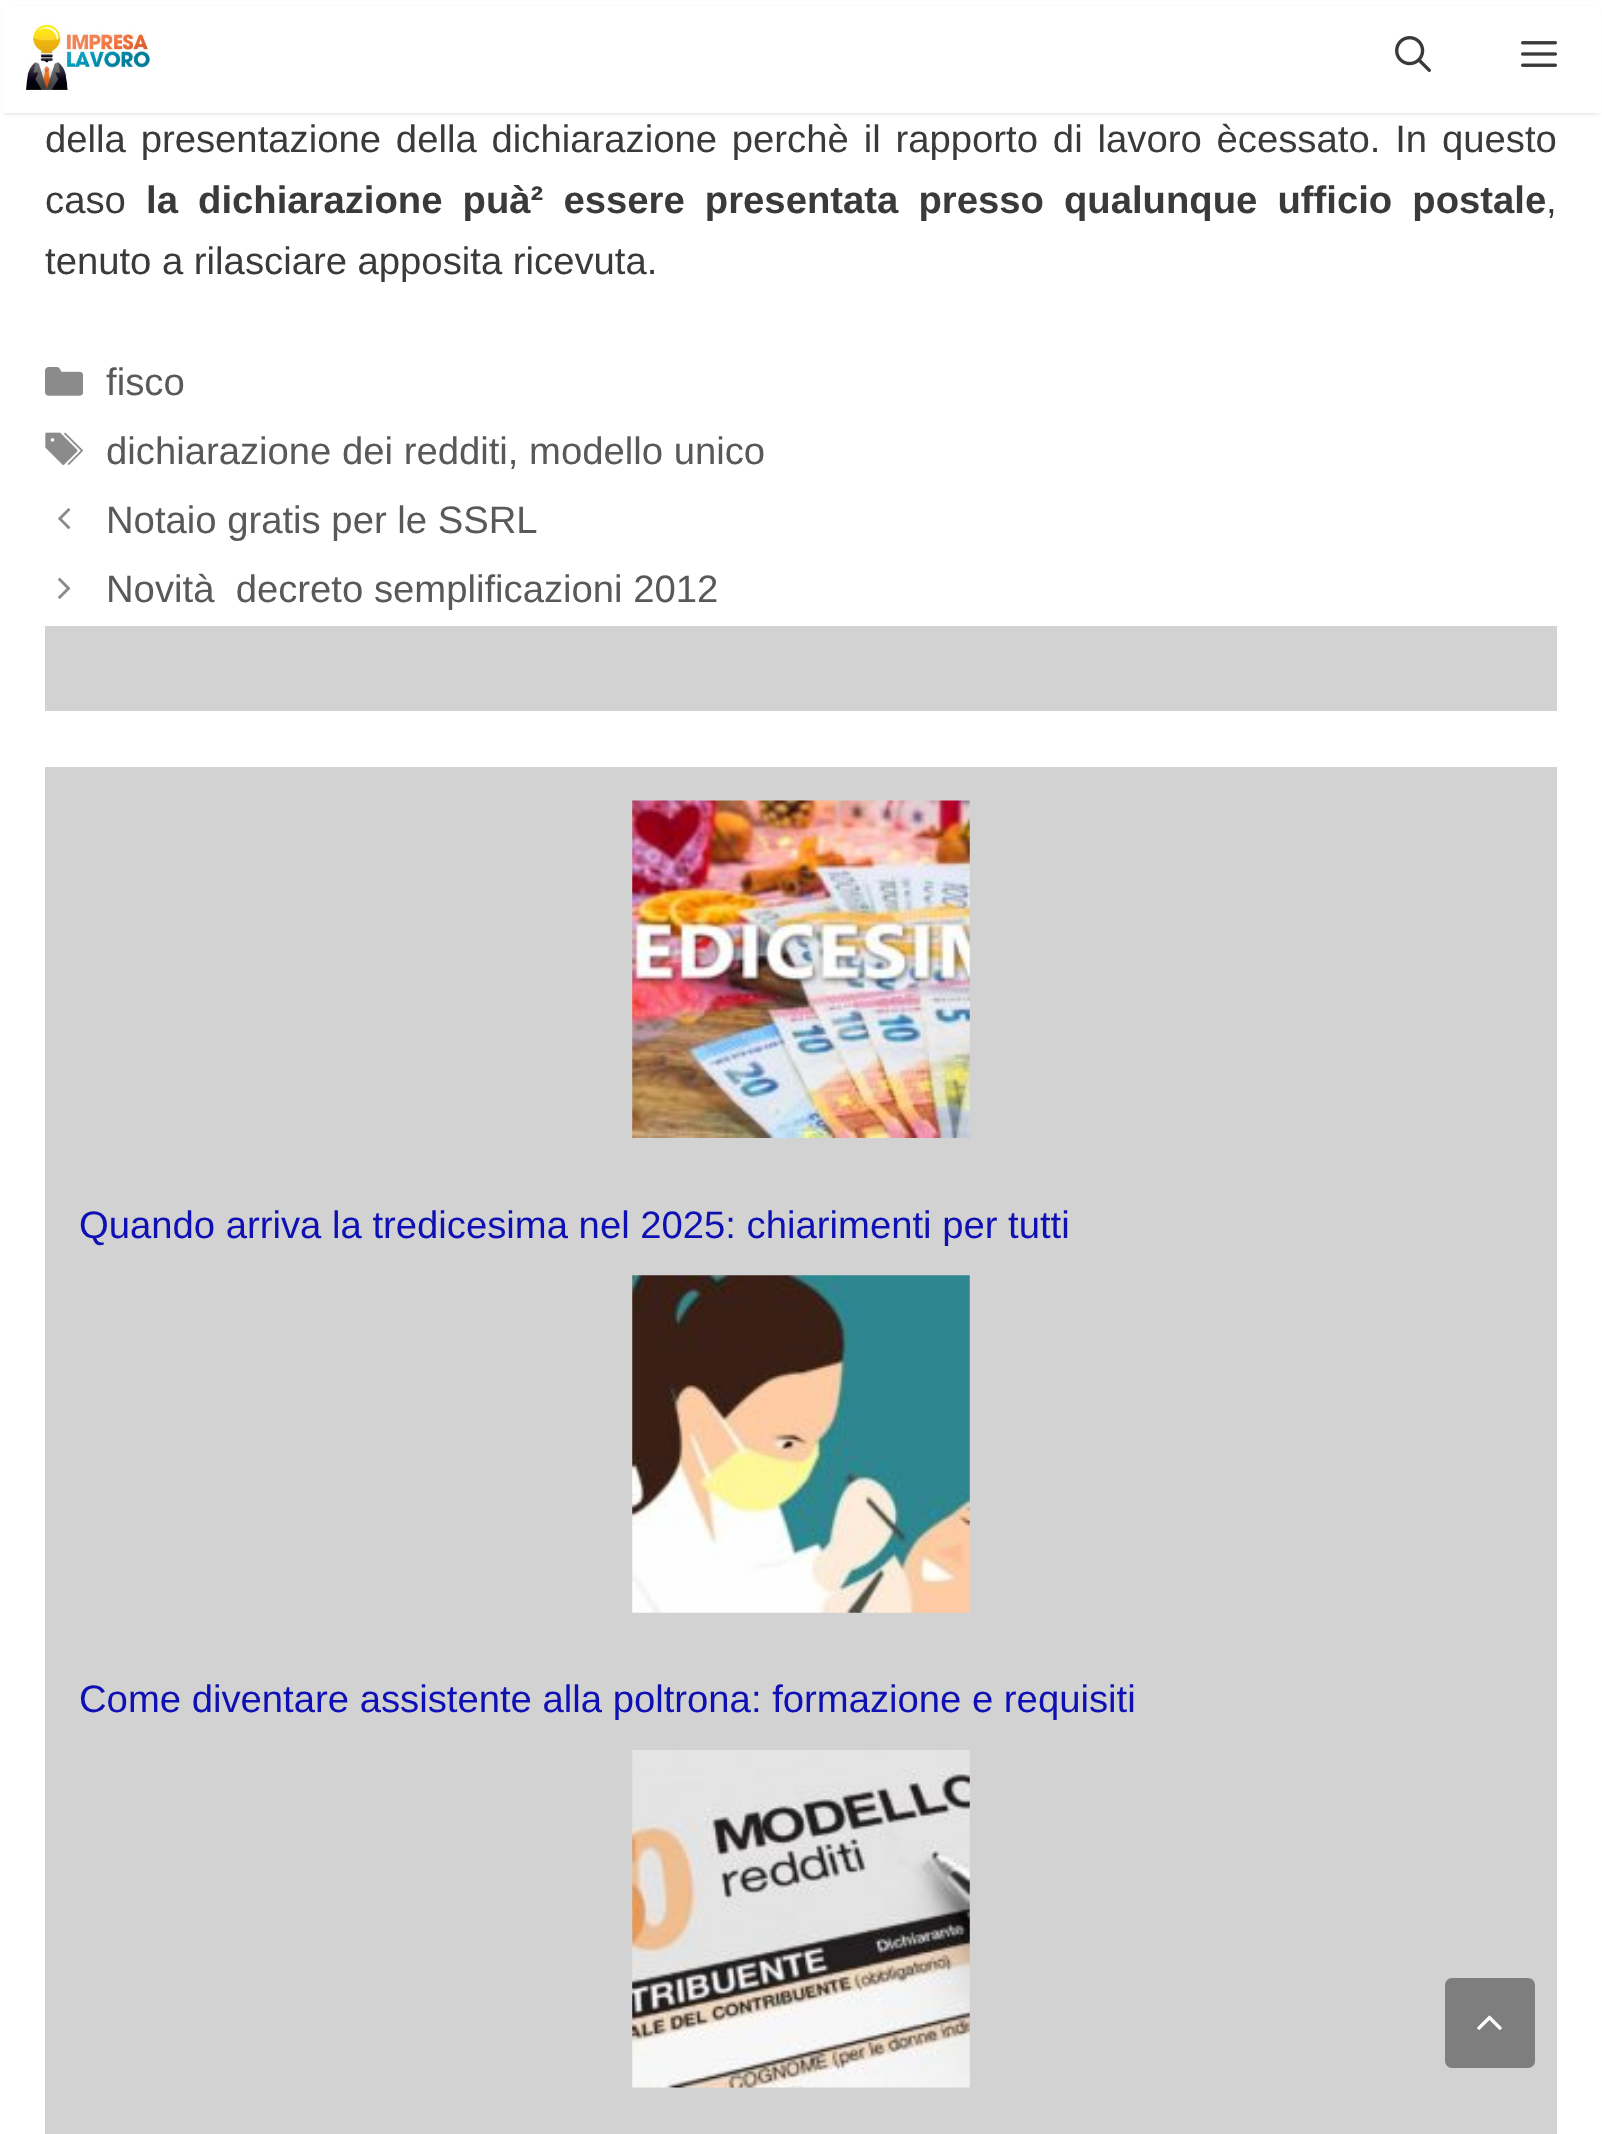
(async () => {
    const canvas = document.querySelector("canvas");
    canvas.width = 1602;
    canvas.height = 2134;
    const context = canvas.getContext("2d");
    context.miterLimit = 4;
    context.fontKerning = "normal";
    function write(s, x, y, font, color) {
        context.font = font;
        context.fillStyle = color;
        context.fillText(s, x, y);
    }
    function block(x, y, w, h, color) {
        context.fillStyle = color;
        context.fillRect(x, y, w, h);
    }
    function card(x, y, w, h, r, color) {
        context.fillStyle = color;
        context.beginPath();
        context.roundRect(x, y, w, h, r);
        context.fill();
    }
    async function photo(src, x, y, w, h) {
        const img = new Image();
        img.src = src;
        await img.decode();
        context.drawImage(img, x, y, w, h);
    }

    block(0, 0, 1602, 2134, "rgb(255, 255, 255)");
    context.fillStyle = "rgba(0, 0, 0, 0.2)";
    context.filter = "blur(2px)";
    context.beginPath();
    context.rect(5, 9, 1593, 104);
    context.fill();
    context.filter = "none";
    block(2, 6, 1599, 107, "rgb(255, 255, 255)");
    await photo("media/1.png", 26, 23, 124, 67);
    await photo("media/2.png", 1395, 36, 36, 36);
    await photo("media/3.png", 1521, 41, 36, 26);
    context.wordSpacing = "4.25px";
    write("della presentazione della dichiarazione perchè il rapporto di lavoro ècessato. In questo", 45, 152, "38.25px Liberation Sans", "rgb(58, 58, 58)");
    context.wordSpacing = "0px";
    write("caso", 45, 213, "38.25px Liberation Sans", "rgb(58, 58, 58)");
    context.wordSpacing = "9.5px";
    write("la dichiarazione puà² essere presentata presso qualunque ufficio postale", 146, 213, "bold 38.25px Liberation Sans", "rgb(58, 58, 58)");
    context.wordSpacing = "0px";
    write(",", 1546, 213, "38.25px Liberation Sans", "rgb(58, 58, 58)");
    write("tenuto a rilasciare apposita ricevuta.", 45, 274, "38.25px Liberation Sans", "rgb(58, 58, 58)");
    await photo("media/4.png", 45, 367, 38, 29);
    write("fisco", 106, 395, "38.25px Liberation Sans", "rgb(89, 89, 89)");
    await photo("media/5.png", 45, 432, 38, 33);
    write("dichiarazione dei redditi, modello unico", 106, 464, "38.25px Liberation Sans", "rgb(89, 89, 89)");
    await photo("media/6.png", 58, 508, 13, 22);
    write("Notaio gratis per le SSRL", 106, 533, "38.25px Liberation Sans", "rgb(89, 89, 89)");
    await photo("media/7.png", 58, 577, 13, 22);
    write("Novità  decreto semplificazioni 2012", 106, 602, "38.25px Liberation Sans", "rgb(89, 89, 89)");
    block(45, 626, 1512, 85, "rgb(210, 210, 210)");
    block(45, 767, 1512, 1367, "rgb(210, 210, 210)");
    await photo("media/8.png", 632, 800, 338, 338);
    write("Quando arriva la tredicesima nel 2025: chiarimenti per tutti", 79, 1238, "38.25px Liberation Sans", "rgb(14, 16, 180)");
    await photo("media/9.png", 632, 1275, 338, 338);
    write("Come diventare assistente alla poltrona: formazione e requisiti", 79, 1712, "38.25px Liberation Sans", "rgb(14, 16, 180)");
    await photo("media/10.png", 632, 1750, 338, 338);
    card(1445, 1978, 90, 90, 7, "rgb(126, 126, 126)");
    await photo("media/11.png", 1477, 2015, 25, 15);
})();
